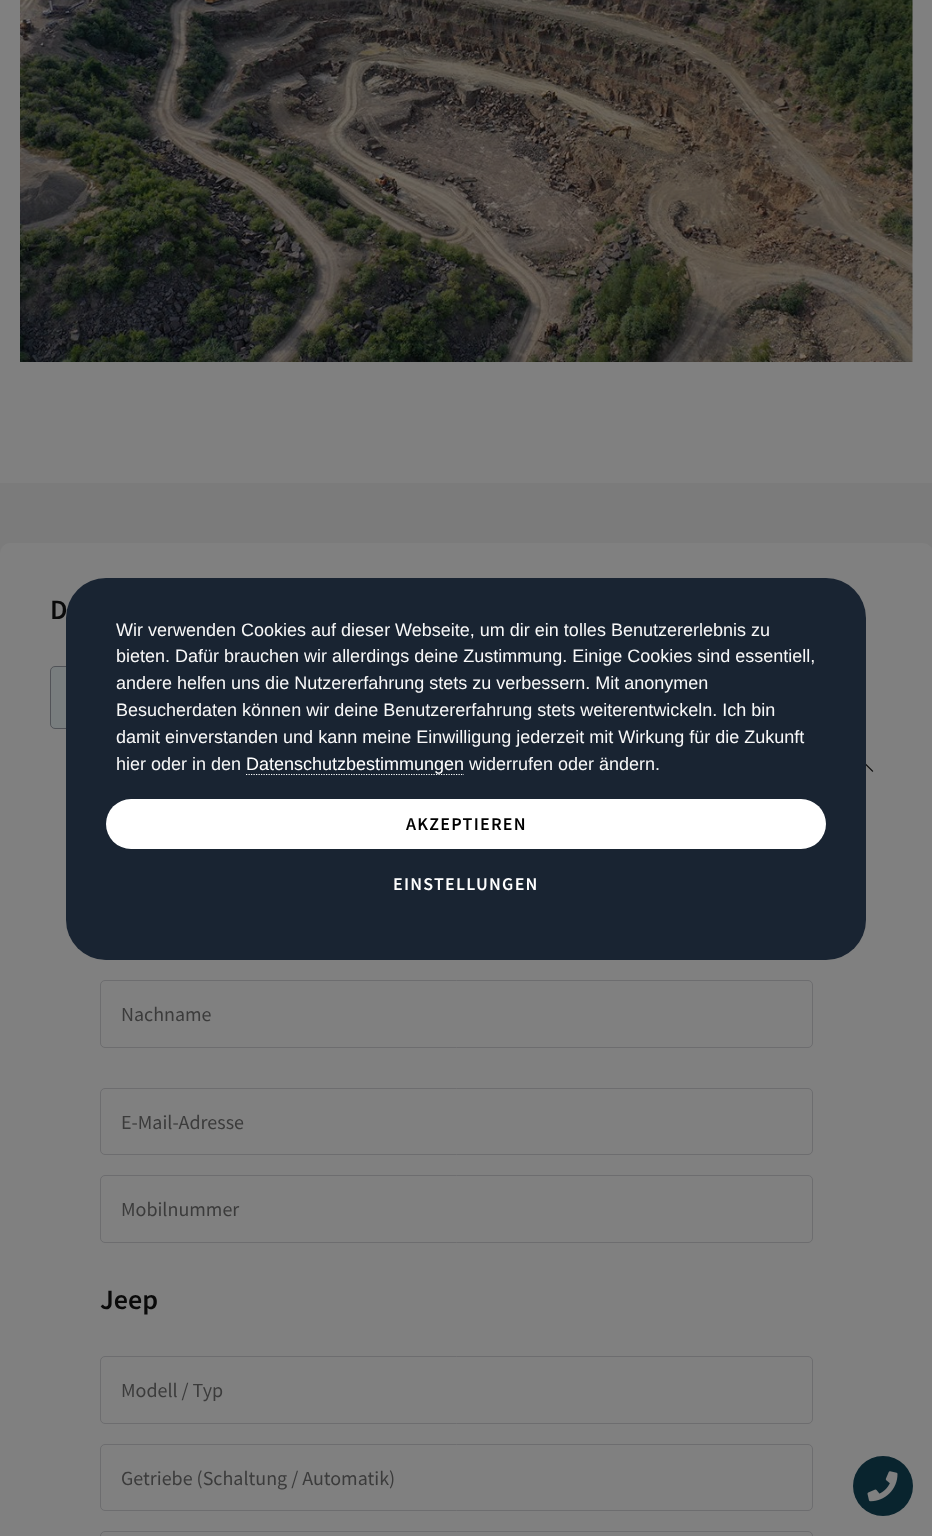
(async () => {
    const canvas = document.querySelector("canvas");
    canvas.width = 932;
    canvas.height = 1536;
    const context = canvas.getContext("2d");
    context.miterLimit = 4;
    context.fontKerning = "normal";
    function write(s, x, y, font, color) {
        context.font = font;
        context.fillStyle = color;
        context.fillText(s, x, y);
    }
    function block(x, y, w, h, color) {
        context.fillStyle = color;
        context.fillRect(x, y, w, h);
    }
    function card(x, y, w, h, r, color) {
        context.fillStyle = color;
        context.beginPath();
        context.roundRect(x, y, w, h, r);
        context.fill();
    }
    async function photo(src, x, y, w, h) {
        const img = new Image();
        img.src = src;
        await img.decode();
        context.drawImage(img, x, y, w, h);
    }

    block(0, 0, 932, 1536, "rgb(128, 128, 128)");
    await photo("media/1.png", 20, 0, 893, 362);
    block(0, 483, 932, 70, "rgb(123, 123, 123)");
    card(0, 543, 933, 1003, 10, "rgb(128, 128, 128)");
    write("D", 50, 619, "600 28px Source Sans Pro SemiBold", "rgb(10, 10, 10)");
    context.fillStyle = "rgb(120, 125, 126)";
    context.beginPath();
    context.roundRect(50.5, 666.5, 812, 62, 4.5);
    context.fill();
    context.strokeStyle = "rgb(81, 83, 88)";
    context.stroke();
    context.beginPath();
    context.roundRect(100.5, 893.5, 712, 66, 4.5);
    context.strokeStyle = "rgb(109, 109, 111)";
    context.stroke();
    context.beginPath();
    context.roundRect(100.5, 980.5, 712, 67, 4.5);
    context.stroke();
    write("Nachname", 121, 1021, "20px Source Sans Pro", "rgb(59, 59, 59)");
    context.beginPath();
    context.roundRect(100.5, 1088.5, 712, 66, 4.5);
    context.stroke();
    write("E-Mail-Adresse", 121, 1129, "20px Source Sans Pro", "rgb(59, 59, 59)");
    context.beginPath();
    context.roundRect(100.5, 1175.5, 712, 67, 4.5);
    context.stroke();
    write("Mobilnummer", 121, 1216, "20px Source Sans Pro", "rgb(59, 59, 59)");
    write("Jeep", 100, 1309, "600 28px Source Sans Pro SemiBold", "rgb(10, 10, 10)");
    context.beginPath();
    context.roundRect(100.5, 1356.5, 712, 67, 4.5);
    context.stroke();
    write("Modell / Typ", 121, 1397, "20px Source Sans Pro", "rgb(59, 59, 59)");
    context.beginPath();
    context.roundRect(100.5, 1444.5, 712, 66, 4.5);
    context.stroke();
    write("Getriebe (Schaltung / Automatik)", 121, 1485, "20px Source Sans Pro", "rgb(59, 59, 59)");
    context.beginPath();
    context.roundRect(100.5, 1531.5, 712, 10, 4.5);
    context.stroke();
    card(66, 578, 800, 382, 40, "rgb(25, 36, 50)");
    write("Wir verwenden Cookies auf dieser Webseite, um dir ein tolles Benutzererlebnis zu", 116, 636, "18px Liberation Sans", "rgb(248, 248, 248)");
    write("bieten. Dafür brauchen wir allerdings deine Zustimmung. Einige Cookies sind essentiell,", 116, 662, "18px Liberation Sans", "rgb(248, 248, 248)");
    write("andere helfen uns die Nutzererfahrung stets zu verbessern. Mit anonymen", 116, 689, "18px Liberation Sans", "rgb(248, 248, 248)");
    write("Besucherdaten können wir deine Benutzererfahrung stets weiterentwickeln. Ich bin", 116, 716, "18px Liberation Sans", "rgb(248, 248, 248)");
    write("damit einverstanden und kann meine Einwilligung jederzeit mit Wirkung für die Zukunft", 116, 743, "18px Liberation Sans", "rgb(248, 248, 248)");
    write("hier oder in den", 116, 770, "18px Liberation Sans", "rgb(248, 248, 248)");
    context.beginPath();
    context.moveTo(246, 774.5);
    context.lineTo(464, 774.5);
    context.strokeStyle = "rgb(255, 255, 255)";
    context.lineWidth = 1.2;
    context.setLineDash([1.25, 1.25]);
    context.stroke();
    write("Datenschutzbestimmungen", 246, 770, "18px Liberation Sans", "rgb(255, 255, 255)");
    write("widerrufen oder ändern.", 469, 770, "18px Liberation Sans", "rgb(248, 248, 248)");
    card(106, 799, 720, 50, 25, "rgb(255, 255, 255)");
    context.letterSpacing = "1.25px";
    write("AKZEPTIEREN", 406, 830, "600 18px Source Sans Pro SemiBold", "rgb(0, 0, 0)");
    write("EINSTELLUNGEN", 393, 890, "600 18px Source Sans Pro SemiBold", "rgb(255, 255, 255)");
    await photo("media/2.png", 866, 763, 8, 9);
    context.fillStyle = "rgb(9, 36, 46)";
    context.beginPath();
    context.arc(883, 1486, 30, 0, Math.PI * 2);
    context.fill();
    await photo("media/3.png", 867, 1471, 31, 31);
})();
